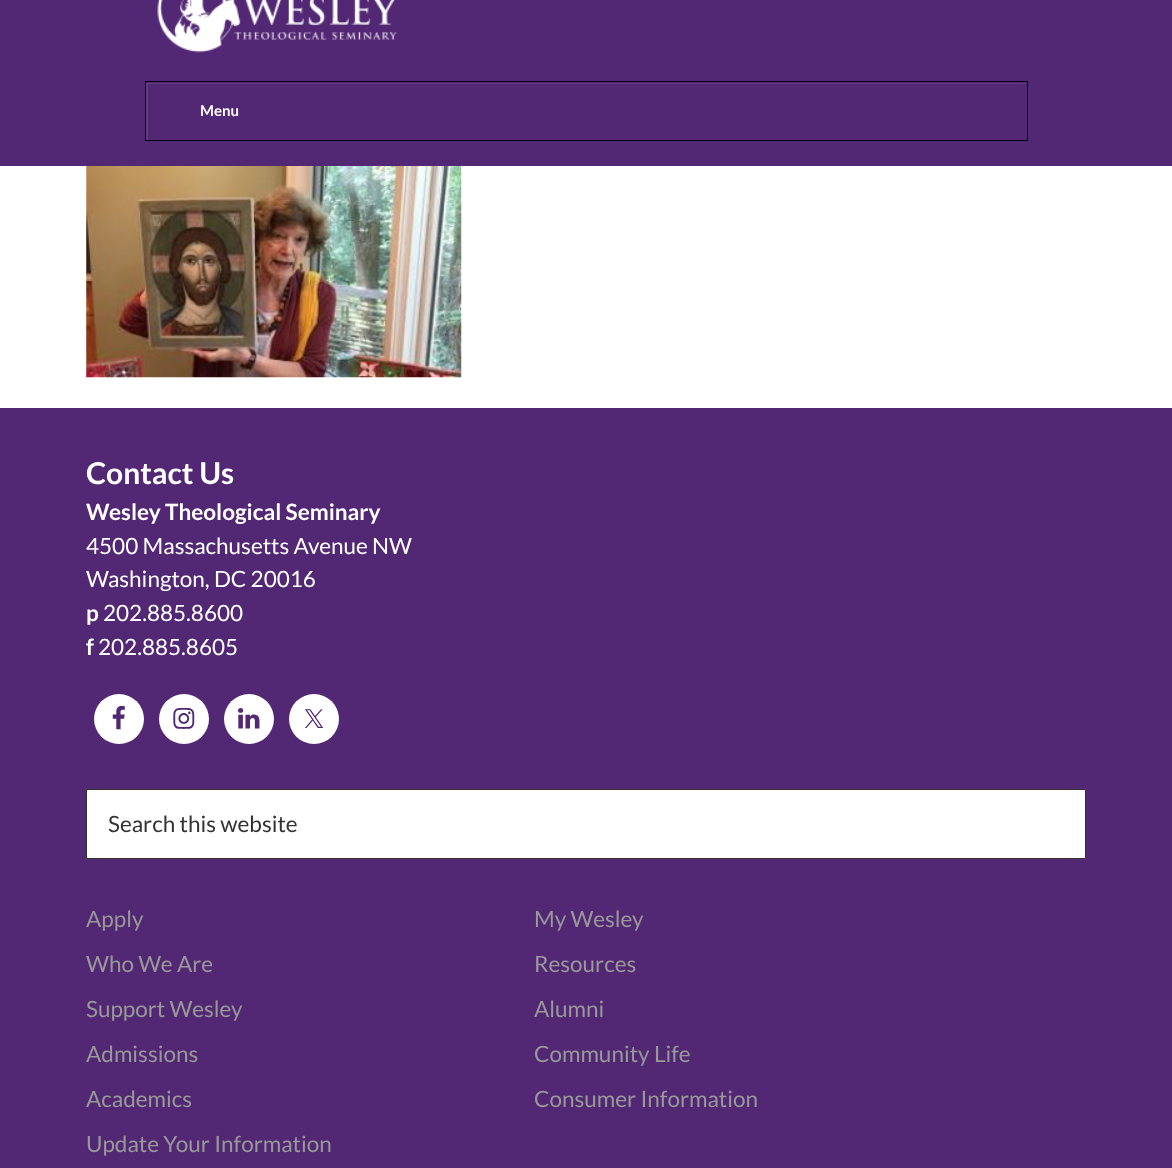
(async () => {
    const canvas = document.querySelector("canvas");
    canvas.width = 1172;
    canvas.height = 1168;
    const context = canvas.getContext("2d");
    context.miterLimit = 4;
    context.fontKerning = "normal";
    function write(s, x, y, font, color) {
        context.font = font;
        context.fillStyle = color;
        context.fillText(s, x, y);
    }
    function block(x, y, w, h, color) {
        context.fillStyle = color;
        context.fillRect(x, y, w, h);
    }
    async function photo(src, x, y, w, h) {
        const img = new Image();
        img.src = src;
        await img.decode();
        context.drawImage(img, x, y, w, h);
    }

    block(0, 0, 1172, 1168, "rgb(255, 255, 255)");
    block(0, 0, 1172, 166, "rgb(82, 39, 115)");
    await photo("media/1.png", 157, 0, 240, 53);
    context.save();
    context.beginPath();
    context.rect(146, 83, 880, 57);
    context.clip();
    context.fillStyle = "rgb(99, 61, 129)";
    context.beginPath();
    context.moveTo(22, -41);
    context.lineTo(1150, -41);
    context.lineTo(1150, 264);
    context.lineTo(22, 264);
    context.closePath();
    context.moveTo(148, 84);
    context.lineTo(1028, 84);
    context.lineTo(1028, 141);
    context.lineTo(148, 141);
    context.closePath();
    context.fill("evenodd");
    context.restore();
    context.strokeStyle = "rgb(0, 0, 0)";
    context.strokeRect(145.5, 81.5, 882, 59);
    write("Menu", 200, 116, "bold 15px Lato", "rgb(255, 255, 255)");
    await photo("media/2.png", 86, 166, 376, 212);
    block(0, 408, 1172, 760, "rgb(82, 39, 115)");
    write("Contact Us", 86, 484, "bold 30px Lato", "rgb(255, 255, 255)");
    write("Wesley Theological Seminary", 86, 520, "bold 22.5px Lato", "rgb(255, 255, 255)");
    write("4500 Massachusetts Avenue NW", 86, 554, "22.5px Lato", "rgb(255, 255, 255)");
    write("Washington, DC 20016", 86, 587, "22.5px Lato", "rgb(255, 255, 255)");
    write("p", 86, 621, "bold 22.5px Lato", "rgb(255, 255, 255)");
    write("202.885.8600", 103, 621, "22.5px Lato", "rgb(255, 255, 255)");
    write("f", 86, 655, "bold 22.5px Lato", "rgb(255, 255, 255)");
    write("202.885.8605", 98, 655, "22.5px Lato", "rgb(255, 255, 255)");
    context.beginPath();
    context.arc(119, 719, 25, 0, Math.PI * 2);
    context.fill();
    await photo("media/3.png", 112, 706, 13, 24);
    context.beginPath();
    context.arc(184, 719, 25, 0, Math.PI * 2);
    context.fill();
    await photo("media/4.png", 173, 708, 22, 21);
    context.beginPath();
    context.arc(249, 719, 25, 0, Math.PI * 2);
    context.fill();
    await photo("media/5.png", 238, 708, 22, 21);
    context.beginPath();
    context.arc(314, 719, 25, 0, Math.PI * 2);
    context.fill();
    await photo("media/6.png", 305, 709, 19, 19);
    context.beginPath();
    context.rect(86.5, 789.5, 999, 69);
    context.fill();
    context.strokeStyle = "rgb(51, 51, 51)";
    context.stroke();
    write("Search this website", 108, 832, "22.5px Lato", "rgb(51, 51, 51)");
    write("Apply", 86, 927, "22.5px Lato", "rgb(153, 153, 153)");
    write("Who We Are", 86, 972, "22.5px Lato", "rgb(153, 153, 153)");
    write("Support Wesley", 86, 1017, "22.5px Lato", "rgb(153, 153, 153)");
    write("Admissions", 86, 1062, "22.5px Lato", "rgb(153, 153, 153)");
    write("Academics", 86, 1107, "22.5px Lato", "rgb(153, 153, 153)");
    write("My Wesley", 534, 927, "22.5px Lato", "rgb(153, 153, 153)");
    write("Resources", 534, 972, "22.5px Lato", "rgb(153, 153, 153)");
    write("Alumni", 534, 1017, "22.5px Lato", "rgb(153, 153, 153)");
    write("Community Life", 534, 1062, "22.5px Lato", "rgb(153, 153, 153)");
    write("Consumer Information", 534, 1107, "22.5px Lato", "rgb(153, 153, 153)");
    write("Update Your Information", 86, 1152, "22.5px Lato", "rgb(153, 153, 153)");
})();
